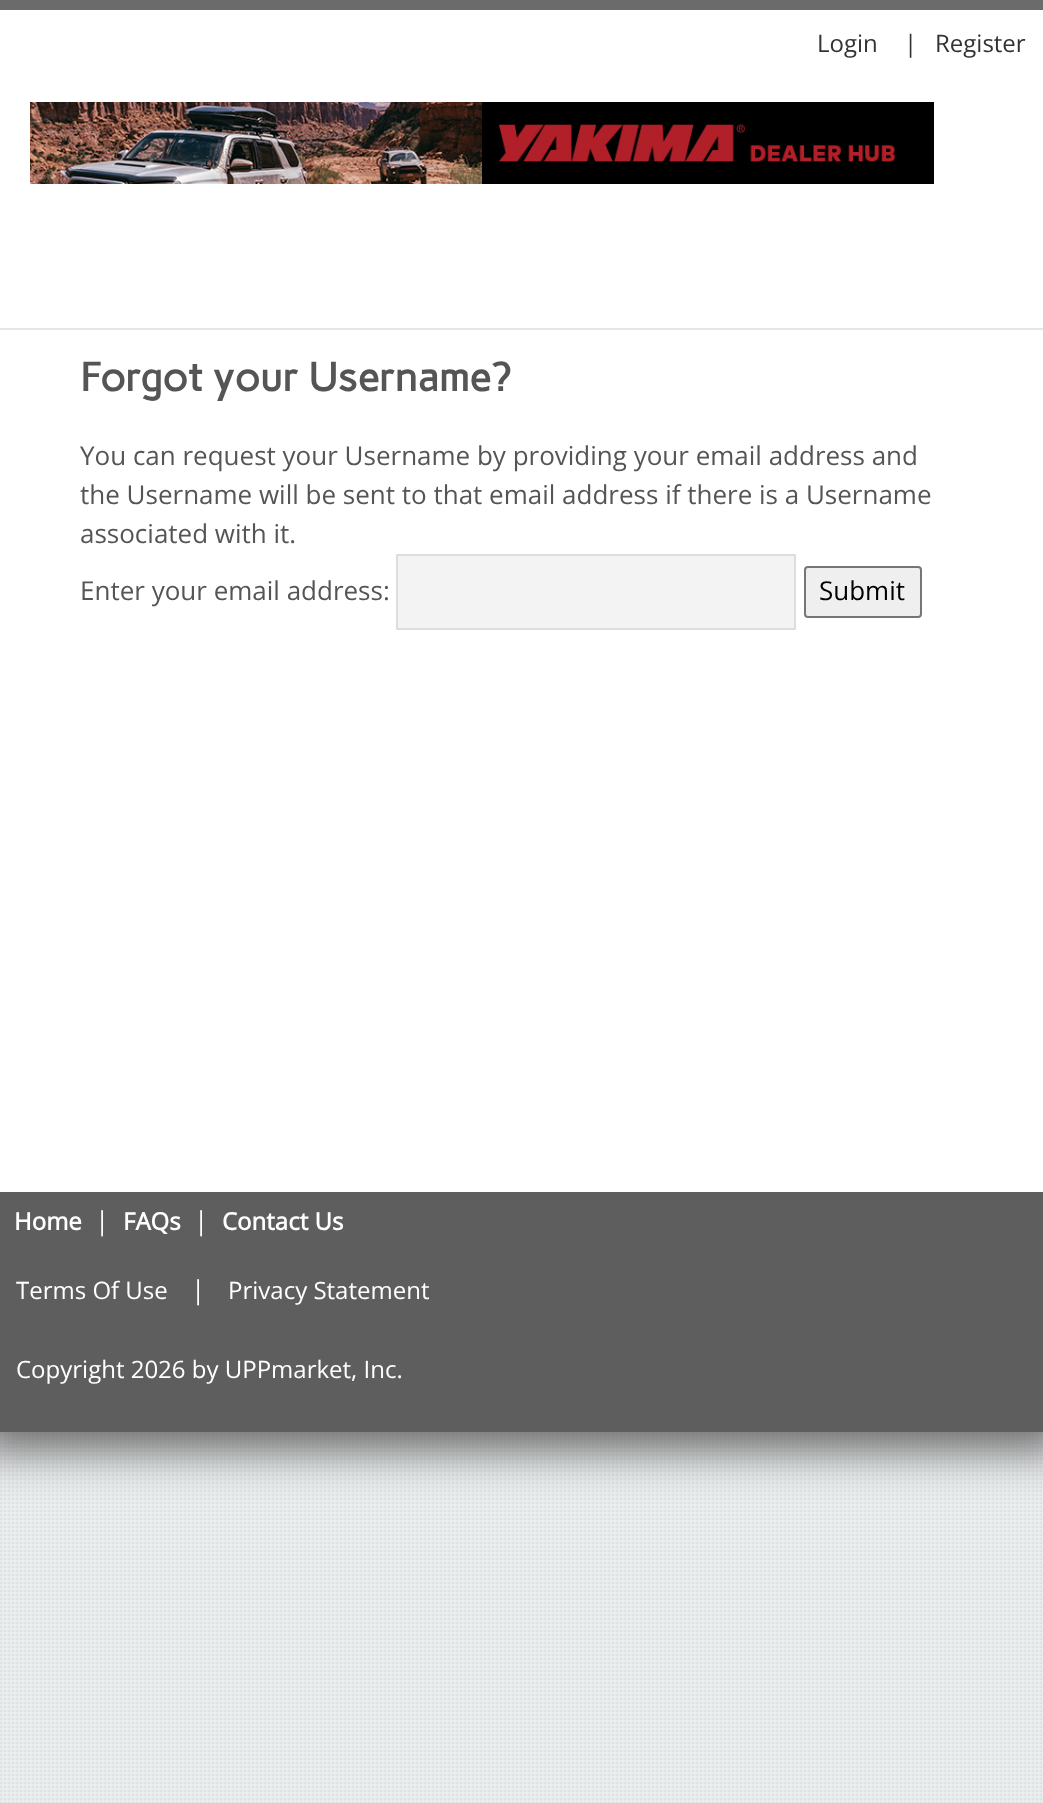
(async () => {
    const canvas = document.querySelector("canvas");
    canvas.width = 1043;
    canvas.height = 1803;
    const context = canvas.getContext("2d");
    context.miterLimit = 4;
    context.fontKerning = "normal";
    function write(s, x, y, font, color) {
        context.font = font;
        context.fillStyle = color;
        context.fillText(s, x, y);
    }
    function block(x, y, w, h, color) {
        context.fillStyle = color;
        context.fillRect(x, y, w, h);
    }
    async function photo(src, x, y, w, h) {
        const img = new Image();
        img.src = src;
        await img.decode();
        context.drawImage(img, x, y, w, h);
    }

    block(0, 0, 1043, 1803, "rgb(255, 255, 255)");
    await photo("media/1.png", 0, 1432, 1043, 371);
    context.fillStyle = "rgb(114, 112, 113)";
    context.filter = "blur(20px)";
    context.beginPath();
    context.rect(-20, -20, 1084, 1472);
    context.fill();
    context.filter = "none";
    block(0, 10, 1043, 1182, "rgb(255, 255, 255)");
    block(0, 0, 1043, 10, "rgb(107, 107, 107)");
    write("Login", 817, 52, "24px Open Sans", "rgb(51, 51, 51)");
    write("|", 904, 52, "24px Open Sans", "rgb(51, 51, 51)");
    write("Register", 935, 52, "24px Open Sans", "rgb(51, 51, 51)");
    await photo("media/2.png", 30, 102, 904, 82);
    block(0, 328, 1043, 2, "rgb(229, 229, 229)");
    write("Forgot your Username?", 80, 391, "bold 40px Carme", "rgb(85, 85, 85)");
    write("You can request your Username by providing your email address and", 80, 465, "26px Open Sans", "rgb(85, 85, 85)");
    write("the Username will be sent to that email address if there is a Username", 80, 504, "26px Open Sans", "rgb(85, 85, 85)");
    write("associated with it.", 80, 543, "26px Open Sans", "rgb(85, 85, 85)");
    write("Enter your email address:", 80, 600, "26px Open Sans", "rgb(85, 85, 85)");
    context.fillStyle = "rgb(243, 243, 243)";
    context.beginPath();
    context.rect(397, 555, 398, 74);
    context.fill();
    context.strokeStyle = "rgb(221, 221, 221)";
    context.lineWidth = 2;
    context.stroke();
    context.fillStyle = "rgb(239, 239, 239)";
    context.beginPath();
    context.roundRect(805, 567, 116, 50, 3);
    context.fill();
    context.strokeStyle = "rgb(118, 118, 118)";
    context.stroke();
    write("Submit", 819, 600, "26px Open Sans", "rgb(0, 0, 0)");
    block(0, 1192, 1043, 240, "rgb(94, 94, 94)");
    write("Home", 14, 1230, "bold 24px Open Sans", "rgb(255, 255, 255)");
    write("|", 95, 1230, "26px Open Sans", "rgb(255, 255, 255)");
    write("FAQs", 123, 1230, "bold 24px Open Sans", "rgb(255, 255, 255)");
    write("|", 194, 1230, "26px Open Sans", "rgb(255, 255, 255)");
    write("Contact Us", 222, 1230, "bold 24px Open Sans", "rgb(255, 255, 255)");
    write("Terms Of Use", 16, 1299, "24px Open Sans", "rgb(255, 255, 255)");
    write("|", 191, 1299, "26px Open Sans", "rgb(255, 255, 255)");
    write("Privacy Statement", 228, 1299, "24px Open Sans", "rgb(255, 255, 255)");
    write("Copyright 2026 by UPPmarket, Inc.", 16, 1378, "24px Open Sans", "rgb(255, 255, 255)");
})();
